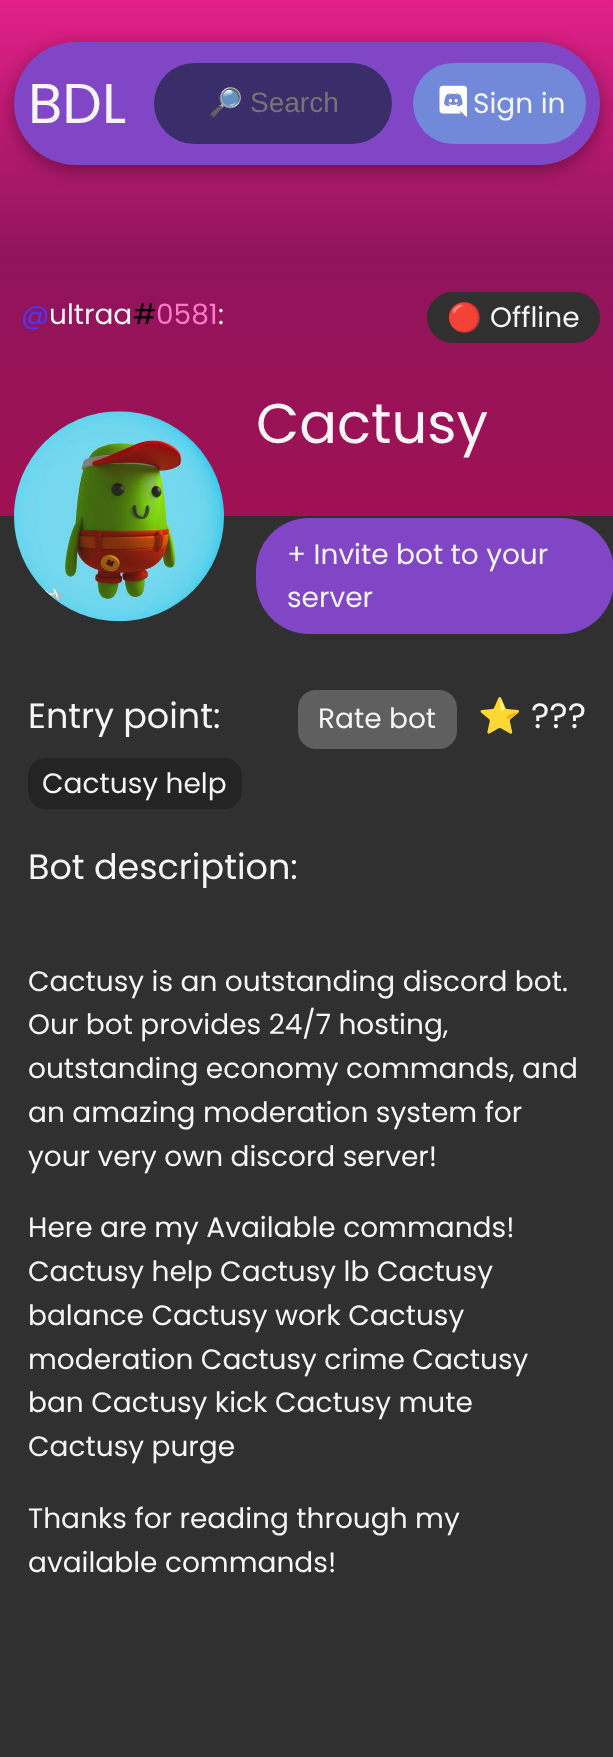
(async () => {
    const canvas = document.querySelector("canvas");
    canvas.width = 613;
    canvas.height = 1757;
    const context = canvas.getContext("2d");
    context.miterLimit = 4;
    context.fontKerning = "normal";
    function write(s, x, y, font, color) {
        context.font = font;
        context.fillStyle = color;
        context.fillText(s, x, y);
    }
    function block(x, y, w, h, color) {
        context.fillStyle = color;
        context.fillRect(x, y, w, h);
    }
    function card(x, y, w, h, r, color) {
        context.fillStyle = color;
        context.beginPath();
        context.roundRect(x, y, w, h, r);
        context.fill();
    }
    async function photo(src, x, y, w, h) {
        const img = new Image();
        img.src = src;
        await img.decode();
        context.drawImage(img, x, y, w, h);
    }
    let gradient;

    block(0, 0, 613, 1757, "rgb(48, 48, 48)");
    gradient = context.createLinearGradient(307, 0, 307, 516);
    gradient.addColorStop(0, "rgb(226, 32, 136)");
    gradient.addColorStop(0.5, "rgb(144, 20, 92)");
    gradient.addColorStop(1, "rgb(160, 17, 83)");
    context.fillStyle = gradient;
    context.fillRect(0, 0, 613, 516);
    context.fillStyle = "rgba(0, 0, 0, 0.36)";
    context.filter = "blur(9px)";
    context.beginPath();
    context.roundRect(14, 47, 586, 123, 61.5);
    context.fill();
    context.filter = "none";
    card(14, 42, 586, 123, 61.5, "rgb(129, 70, 198)");
    write("BDL", 28, 123, "56px Poppins", "rgb(245, 245, 245)");
    card(154, 63, 238, 81, 40.5, "rgb(57, 46, 105)");
    write("🔎", 208, 112, "28px Noto Color Emoji", "rgb(117, 117, 117)");
    write("Search", 250, 112, "28px Liberation Sans", "rgb(117, 117, 117)");
    card(413, 63, 173, 81, 40.5, "rgb(114, 137, 218)");
    await photo("media/1.png", 439, 85, 28, 32);
    write("Sign in", 473, 113, "28px Poppins", "rgb(245, 245, 245)");
    write("@", 21, 324, "28px Poppins", "rgb(72, 55, 255)");
    write("ultraa", 49, 324, "28px Poppins", "rgb(245, 245, 245)");
    write("#", 133, 324, "28px Poppins", "rgb(0, 0, 0)");
    write("0581", 156, 324, "28px Poppins", "rgb(255, 122, 205)");
    write(":", 218, 324, "28px Poppins", "rgb(245, 245, 245)");
    card(427, 292, 173, 51, 25.5, "rgb(48, 48, 48)");
    write("🔴", 447, 327, "28px Noto Color Emoji", "rgb(245, 245, 245)");
    write("Offline", 490, 327, "28px Poppins", "rgb(245, 245, 245)");
    await photo("media/2.png", 14, 411, 210, 211);
    write("Cactusy", 256, 443, "56px Poppins", "rgb(245, 245, 245)");
    card(256, 518, 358, 116, 53, "rgb(129, 70, 198)");
    write("+ Invite bot to your", 287, 564, "28px Poppins", "rgb(245, 245, 245)");
    write("server", 287, 607, "28px Poppins", "rgb(245, 245, 245)");
    write("Entry point:", 28, 728, "35px Poppins", "rgb(245, 245, 245)");
    card(298, 690, 159, 59, 18, "rgb(95, 95, 95)");
    write("Rate bot", 318, 728, "28px Poppins", "rgb(245, 245, 245)");
    write("⭐", 478, 728, "35px Noto Color Emoji", "rgb(245, 245, 245)");
    write("???", 531, 728, "35px Poppins", "rgb(245, 245, 245)");
    card(28, 758, 214, 51, 18, "rgb(36, 36, 36)");
    write("Cactusy help", 42, 793, "28px Poppins", "rgb(245, 245, 245)");
    write("Bot description:", 28, 879, "35px Poppins", "rgb(245, 245, 245)");
    write("Cactusy is an outstanding discord bot.", 28, 991, "28px Poppins", "rgb(245, 245, 245)");
    write("Our bot provides 24/7 hosting,", 28, 1034, "28px Poppins", "rgb(245, 245, 245)");
    write("outstanding economy commands, and", 28, 1078, "28px Poppins", "rgb(245, 245, 245)");
    write("an amazing moderation system for", 28, 1122, "28px Poppins", "rgb(245, 245, 245)");
    write("your very own discord server!", 28, 1166, "28px Poppins", "rgb(245, 245, 245)");
    write("Here are my Available commands!", 28, 1237, "28px Poppins", "rgb(245, 245, 245)");
    write("Cactusy help Cactusy lb Cactusy", 28, 1281, "28px Poppins", "rgb(245, 245, 245)");
    write("balance Cactusy work Cactusy", 28, 1325, "28px Poppins", "rgb(245, 245, 245)");
    write("moderation Cactusy crime Cactusy", 28, 1369, "28px Poppins", "rgb(245, 245, 245)");
    write("ban Cactusy kick Cactusy mute", 28, 1412, "28px Poppins", "rgb(245, 245, 245)");
    write("Cactusy purge", 28, 1456, "28px Poppins", "rgb(245, 245, 245)");
    write("Thanks for reading through my", 28, 1528, "28px Poppins", "rgb(245, 245, 245)");
    write("available commands!", 28, 1572, "28px Poppins", "rgb(245, 245, 245)");
})();
